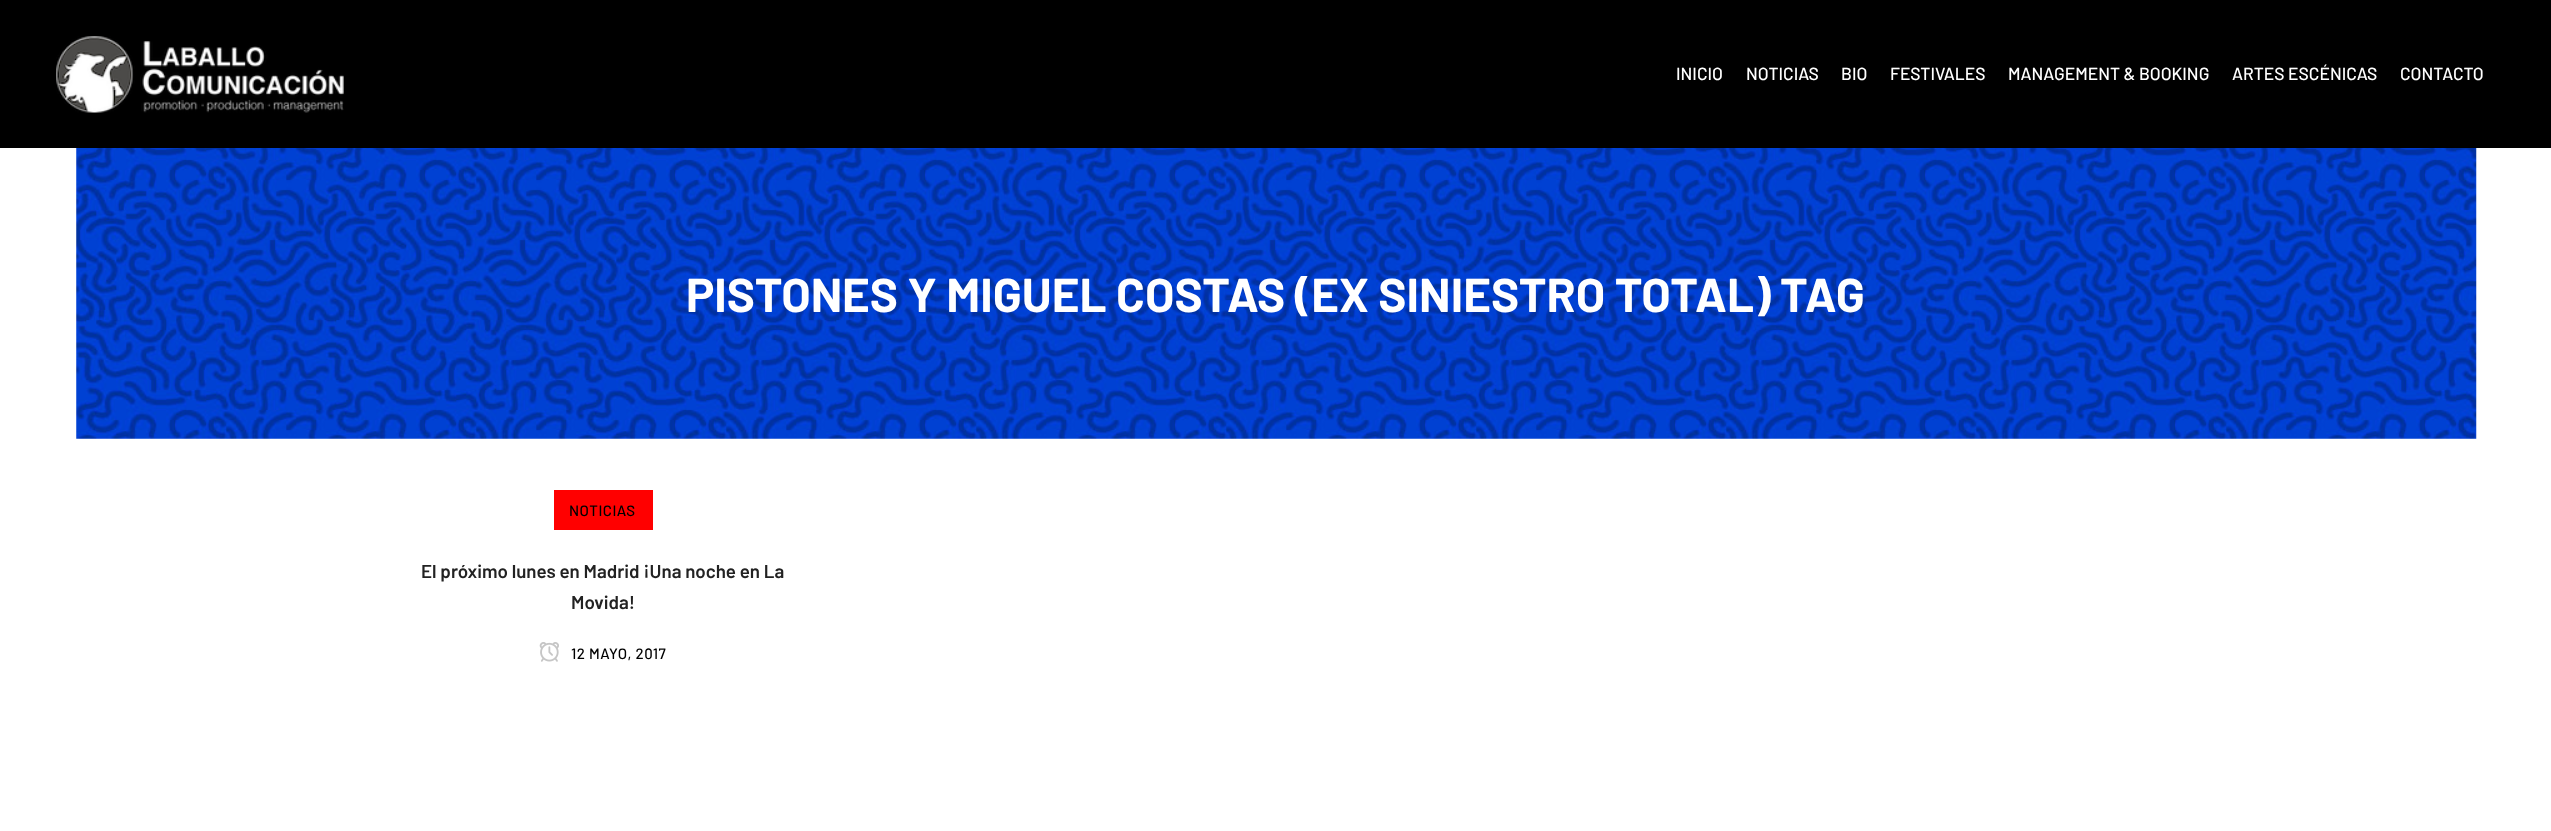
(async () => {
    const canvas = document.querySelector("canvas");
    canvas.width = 2551;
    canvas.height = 831;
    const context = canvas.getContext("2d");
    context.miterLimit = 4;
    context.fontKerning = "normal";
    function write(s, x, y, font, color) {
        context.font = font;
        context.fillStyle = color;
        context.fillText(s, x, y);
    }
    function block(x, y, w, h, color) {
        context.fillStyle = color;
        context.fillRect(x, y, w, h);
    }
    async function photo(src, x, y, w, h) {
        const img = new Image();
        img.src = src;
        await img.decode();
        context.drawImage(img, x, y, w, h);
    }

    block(0, 0, 2551, 831, "rgb(255, 255, 255)");
    block(0, 0, 2551, 148, "rgb(0, 0, 0)");
    await photo("media/1.png", 56, 36, 288, 77);
    write("INICIO", 1676, 80, "500 17.5px Barlow", "rgb(255, 255, 255)");
    write("NOTICIAS", 1746, 80, "500 17.5px Barlow", "rgb(255, 255, 255)");
    write("BIO", 1841, 80, "500 17.5px Barlow", "rgb(255, 255, 255)");
    write("FESTIVALES", 1890, 80, "500 17.5px Barlow", "rgb(255, 255, 255)");
    write("MANAGEMENT & BOOKING", 2008, 80, "500 17.5px Barlow", "rgb(255, 255, 255)");
    write("ARTES ESCÉNICAS", 2232, 80, "500 17.5px Barlow", "rgb(255, 255, 255)");
    write("CONTACTO", 2400, 80, "500 17.5px Barlow", "rgb(255, 255, 255)");
    await photo("media/2.png", 76, 148, 2401, 291);
    write("PISTONES Y MIGUEL COSTAS (EX SINIESTRO TOTAL) TAG", 686, 312, "bold 47.5px Barlow", "rgb(255, 255, 255)");
    block(554, 490, 99, 40, "rgb(255, 0, 0)");
    context.letterSpacing = "0.5px";
    write("NOTICIAS", 569, 516, "500 15px Barlow", "rgb(0, 0, 0)");
    context.letterSpacing = "0px";
    write("El próximo lunes en Madrid ¡Una noche en La", 421, 578, "600 18.75px Barlow", "rgb(34, 34, 34)");
    write("Movida!", 571, 609, "600 18.75px Barlow", "rgb(34, 34, 34)");
    await photo("media/3.png", 539, 642, 20, 20);
    context.letterSpacing = "0.5px";
    write("12 MAYO, 2017", 571, 659, "500 15px Barlow", "rgb(0, 0, 0)");
})();
